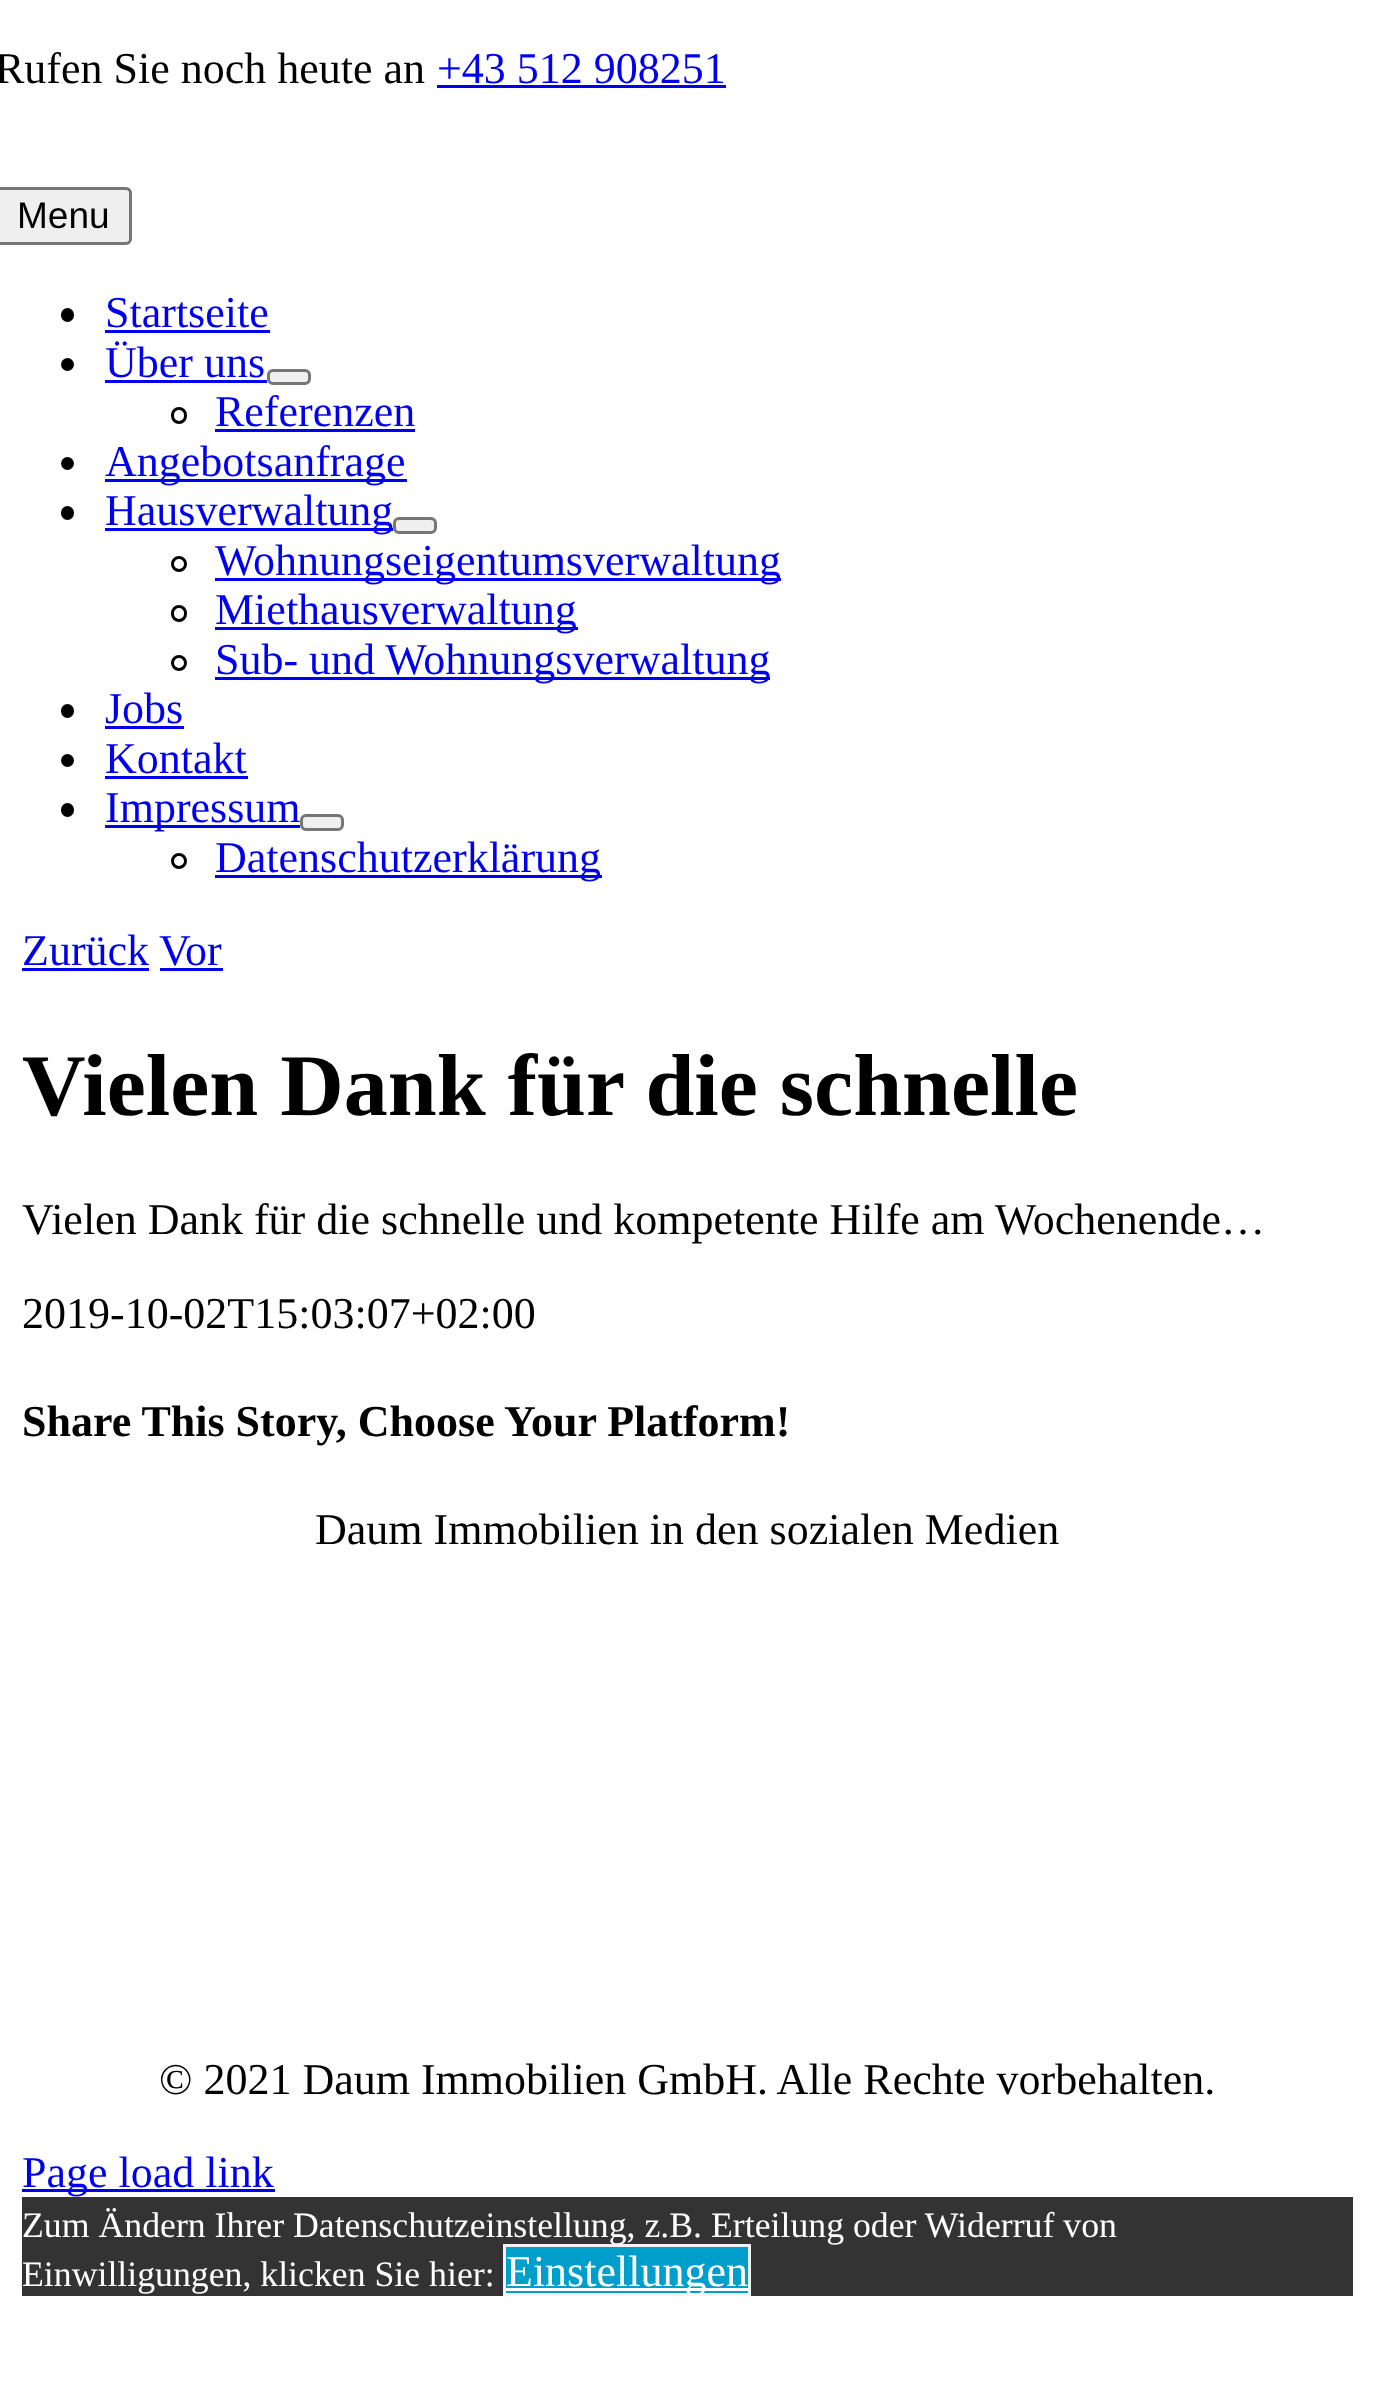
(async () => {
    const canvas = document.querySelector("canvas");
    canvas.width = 1374;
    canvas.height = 2398;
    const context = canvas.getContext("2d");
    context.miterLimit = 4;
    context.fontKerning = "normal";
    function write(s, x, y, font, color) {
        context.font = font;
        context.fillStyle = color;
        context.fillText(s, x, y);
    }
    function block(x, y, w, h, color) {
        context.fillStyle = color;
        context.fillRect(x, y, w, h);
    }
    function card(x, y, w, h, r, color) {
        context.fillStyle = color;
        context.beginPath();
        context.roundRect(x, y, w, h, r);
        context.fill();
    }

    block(0, 0, 1374, 2398, "rgb(255, 255, 255)");
    write("Rufen Sie noch heute an", -5, 83, "44px Liberation Serif", "rgb(0, 0, 0)");
    write("+43 512 908251", 437, 83, "44px Liberation Serif", "rgb(0, 0, 238)");
    block(437, 85, 289, 3, "rgb(0, 0, 238)");
    context.fillStyle = "rgb(239, 239, 239)";
    context.beginPath();
    context.roundRect(-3.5, 188.5, 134, 55, 4.5);
    context.fill();
    context.strokeStyle = "rgb(118, 118, 118)";
    context.lineWidth = 3;
    context.stroke();
    write("Menu", 17, 228, "37px Liberation Sans", "rgb(0, 0, 0)");
    card(61, 308, 13, 14, 6.5, "rgb(0, 0, 0)");
    write("Startseite", 105, 327, "44px Liberation Serif", "rgb(0, 0, 238)");
    block(105, 330, 165, 3, "rgb(0, 0, 238)");
    context.fillStyle = "rgb(0, 0, 0)";
    context.beginPath();
    context.arc(67.5, 364.5, 6.5, 0, Math.PI * 2);
    context.fill();
    write("Über uns", 105, 377, "44px Liberation Serif", "rgb(0, 0, 238)");
    block(105, 380, 162, 3, "rgb(0, 0, 238)");
    context.fillStyle = "rgb(239, 239, 239)";
    context.beginPath();
    context.roundRect(268.5, 370.5, 41, 13, 4.5);
    context.fill();
    context.stroke();
    context.beginPath();
    context.roundRect(172.5, 408.5, 13, 14, 6.5);
    context.strokeStyle = "rgb(0, 0, 0)";
    context.stroke();
    write("Referenzen", 215, 426, "44px Liberation Serif", "rgb(0, 0, 238)");
    block(215, 429, 200, 3, "rgb(0, 0, 238)");
    context.fillStyle = "rgb(0, 0, 0)";
    context.beginPath();
    context.arc(67.5, 463.5, 6.5, 0, Math.PI * 2);
    context.fill();
    block(105, 479, 302, 3, "rgb(0, 0, 238)");
    write("Angebotsanfrage", 105, 476, "44px Liberation Serif", "rgb(0, 0, 238)");
    card(61, 506, 13, 14, 6.5, "rgb(0, 0, 0)");
    block(105, 528, 288, 3, "rgb(0, 0, 238)");
    write("Hausverwaltung", 105, 525, "44px Liberation Serif", "rgb(0, 0, 238)");
    context.fillStyle = "rgb(239, 239, 239)";
    context.beginPath();
    context.roundRect(394.5, 518.5, 41, 14, 4.5);
    context.fill();
    context.strokeStyle = "rgb(118, 118, 118)";
    context.stroke();
    context.beginPath();
    context.arc(179, 564, 6.5, 0, Math.PI * 2);
    context.strokeStyle = "rgb(0, 0, 0)";
    context.stroke();
    block(215, 578, 566, 3, "rgb(0, 0, 238)");
    write("Wohnungseigentumsverwaltung", 215, 575, "44px Liberation Serif", "rgb(0, 0, 238)");
    context.beginPath();
    context.roundRect(172.5, 606.5, 13, 14, 6.5);
    context.stroke();
    block(215, 627, 363, 3, "rgb(0, 0, 238)");
    write("Miethausverwaltung", 215, 624, "44px Liberation Serif", "rgb(0, 0, 238)");
    context.beginPath();
    context.arc(179, 663, 6.5, 0, Math.PI * 2);
    context.stroke();
    block(215, 677, 555, 3, "rgb(0, 0, 238)");
    write("Sub- und Wohnungsverwaltung", 215, 674, "44px Liberation Serif", "rgb(0, 0, 238)");
    card(61, 704, 13, 14, 6.5, "rgb(0, 0, 0)");
    write("Jobs", 105, 723, "44px Liberation Serif", "rgb(0, 0, 238)");
    block(105, 726, 79, 3, "rgb(0, 0, 238)");
    context.fillStyle = "rgb(0, 0, 0)";
    context.beginPath();
    context.arc(67.5, 760.5, 6.5, 0, Math.PI * 2);
    context.fill();
    write("Kontakt", 105, 773, "44px Liberation Serif", "rgb(0, 0, 238)");
    block(105, 776, 143, 3, "rgb(0, 0, 238)");
    card(61, 803, 13, 14, 6.5, "rgb(0, 0, 0)");
    block(105, 825, 195, 3, "rgb(0, 0, 238)");
    write("Impressum", 105, 822, "44px Liberation Serif", "rgb(0, 0, 238)");
    context.fillStyle = "rgb(239, 239, 239)";
    context.beginPath();
    context.roundRect(301.5, 815.5, 41, 14, 4.5);
    context.fill();
    context.strokeStyle = "rgb(118, 118, 118)";
    context.stroke();
    context.beginPath();
    context.arc(179, 861, 6.5, 0, Math.PI * 2);
    context.strokeStyle = "rgb(0, 0, 0)";
    context.stroke();
    block(215, 875, 387, 3, "rgb(0, 0, 238)");
    write("Datenschutzerklärung", 215, 872, "44px Liberation Serif", "rgb(0, 0, 238)");
    write("Zurück", 22, 965, "44px Liberation Serif", "rgb(0, 0, 238)");
    block(22, 968, 127, 3, "rgb(0, 0, 238)");
    write("Vor", 159, 965, "44px Liberation Serif", "rgb(0, 0, 238)");
    block(160, 968, 63, 3, "rgb(0, 0, 238)");
    write("Vielen Dank für die schnelle", 22, 1115, "bold 88px Liberation Serif", "rgb(0, 0, 0)");
    write("Vielen Dank für die schnelle und kompetente Hilfe am Wochenende…", 22, 1234, "44px Liberation Serif", "rgb(0, 0, 0)");
    write("2019-10-02T15:03:07+02:00", 22, 1328, "44px Liberation Serif", "rgb(0, 0, 0)");
    write("Share This Story, Choose Your Platform!", 22, 1436, "bold 44px Liberation Serif", "rgb(0, 0, 0)");
    write("Daum Immobilien in den sozialen Medien", 315, 1544, "44px Liberation Serif", "rgb(0, 0, 0)");
    write("© 2021 Daum Immobilien GmbH. Alle Rechte vorbehalten.", 159, 2094, "44px Liberation Serif", "rgb(0, 0, 0)");
    block(22, 2189, 253, 3, "rgb(0, 0, 238)");
    write("Page load link", 22, 2187, "44px Liberation Serif", "rgb(0, 0, 238)");
    block(22, 2197, 1331, 99, "rgb(51, 51, 51)");
    write("Zum Ändern Ihrer Datenschutzeinstellung, z.B. Erteilung oder Widerruf von", 22, 2237, "35.75px Liberation Serif", "rgb(255, 255, 255)");
    write("Einwilligungen, klicken Sie hier:", 22, 2286, "35.75px Liberation Serif", "rgb(255, 255, 255)");
    context.fillStyle = "rgb(0, 158, 203)";
    context.beginPath();
    context.rect(504.5, 2245.5, 245, 49);
    context.fill();
    context.strokeStyle = "rgb(243, 243, 243)";
    context.stroke();
    block(506, 2288, 242, 3, "rgb(255, 255, 255)");
    write("Einstellungen", 506, 2286, "44px Liberation Serif", "rgb(255, 255, 255)");
})();
